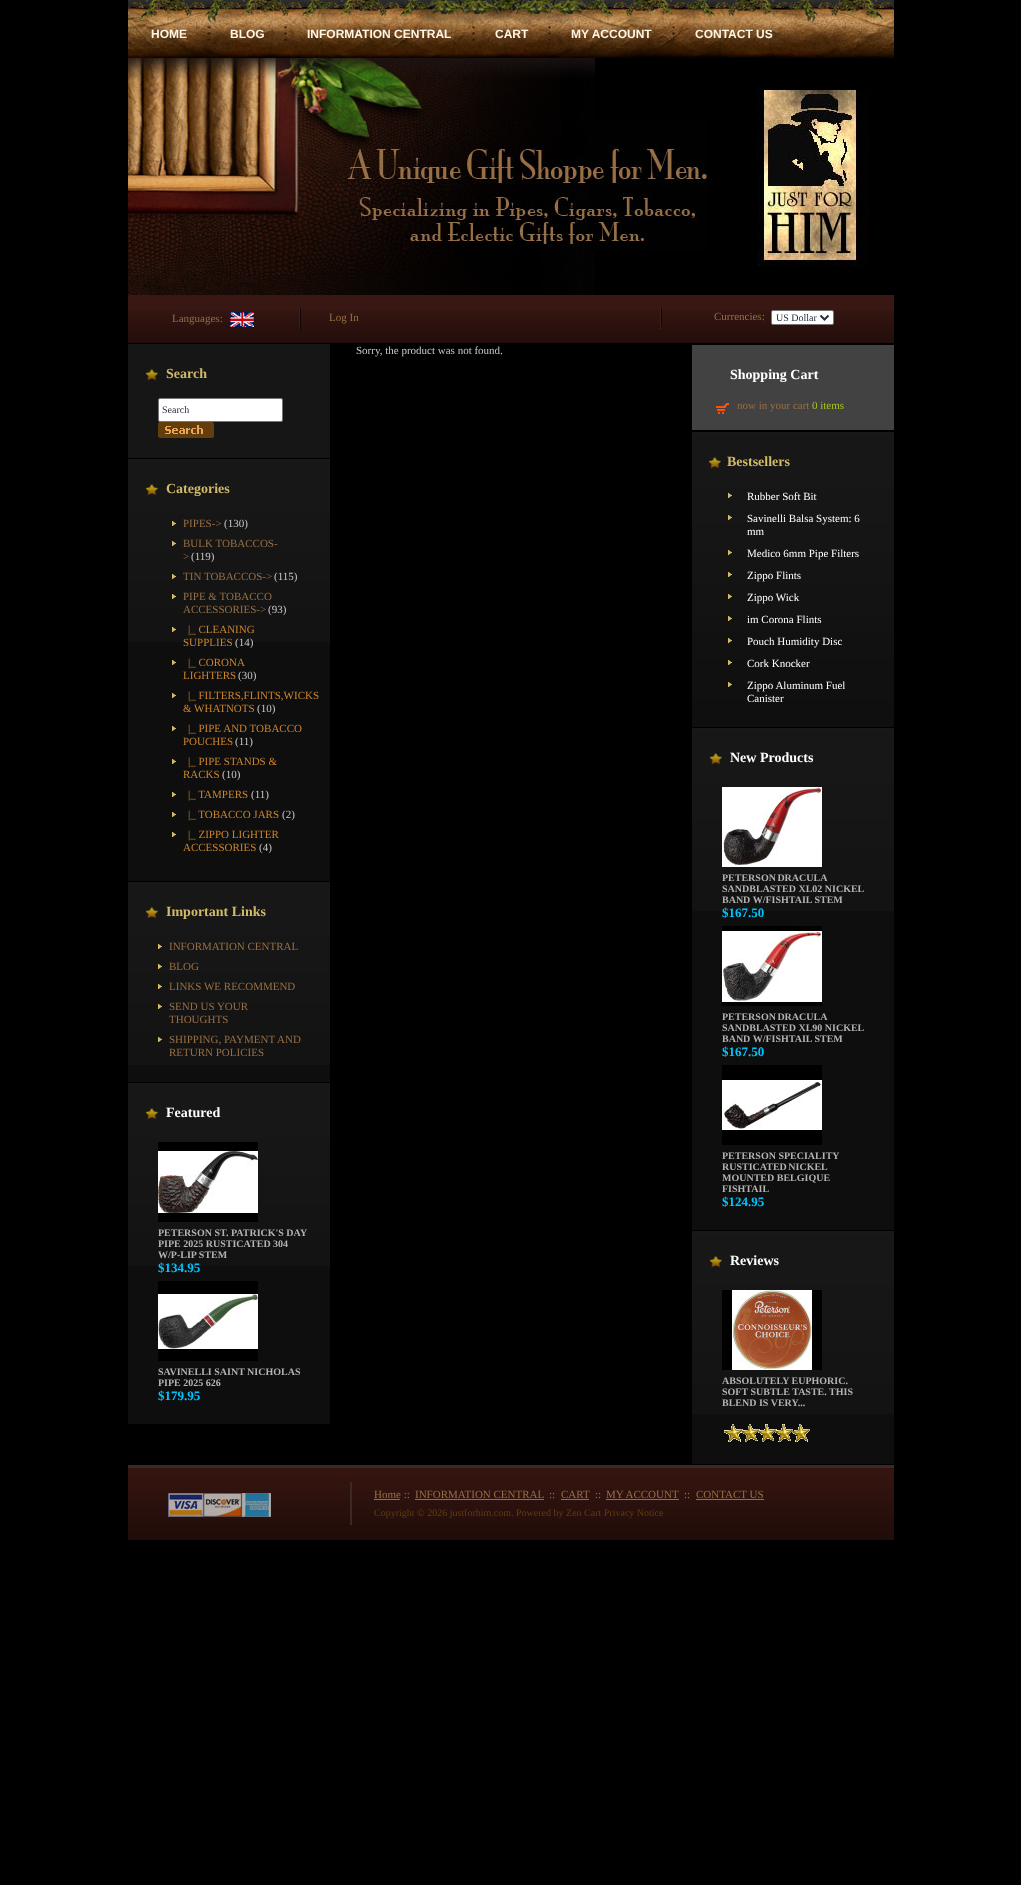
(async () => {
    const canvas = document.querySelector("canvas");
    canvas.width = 1021;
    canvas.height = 1885;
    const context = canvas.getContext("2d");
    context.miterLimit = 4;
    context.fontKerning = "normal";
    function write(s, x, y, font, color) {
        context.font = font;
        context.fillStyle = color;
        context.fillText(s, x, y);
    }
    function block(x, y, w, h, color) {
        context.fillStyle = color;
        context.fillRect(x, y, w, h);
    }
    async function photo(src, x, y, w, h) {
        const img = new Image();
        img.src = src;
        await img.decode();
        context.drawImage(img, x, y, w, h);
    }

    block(0, 0, 1021, 1885, "rgb(0, 0, 0)");
    await photo("media/1.png", 128, 0, 766, 58);
    write("HOME", 151, 38, "bold 12px Liberation Sans", "rgb(254, 246, 231)");
    await photo("media/2.png", 207, 26, 4, 15);
    write("BLOG", 230, 38, "bold 12px Liberation Sans", "rgb(254, 246, 231)");
    await photo("media/3.png", 284, 26, 3, 15);
    write("INFORMATION CENTRAL", 307, 38, "bold 12px Liberation Sans", "rgb(254, 246, 231)");
    await photo("media/4.png", 472, 26, 3, 15);
    write("CART", 495, 38, "bold 12px Liberation Sans", "rgb(254, 246, 231)");
    await photo("media/5.png", 548, 26, 3, 15);
    write("MY ACCOUNT", 571, 38, "bold 12px Liberation Sans", "rgb(254, 246, 231)");
    await photo("media/6.png", 672, 26, 3, 15);
    write("CONTACT US", 695, 38, "bold 12px Liberation Sans", "rgb(254, 246, 231)");
    await photo("media/7.png", 757, 89, 112, 177);
    await photo("media/8.png", 128, 58, 467, 237);
    await photo("media/9.png", 346, 121, 362, 130);
    block(183, 288, 1, 1, "rgb(58, 23, 19)");
    block(128, 295, 766, 15, "rgb(57, 24, 19)");
    await photo("media/10.png", 128, 310, 766, 33);
    block(299, 308, 1, 21, "rgb(61, 30, 26)");
    write("Languages:", 172, 322, "11px Liberation Serif", "rgb(152, 111, 68)");
    await photo("media/11.png", 230, 312, 24, 15);
    block(660, 308, 1, 22, "rgb(61, 30, 26)");
    block(300, 308, 1, 22, "rgb(14, 7, 6)");
    write("Log In", 329, 321, "11px Liberation Serif", "rgb(152, 111, 68)");
    block(661, 308, 1, 19, "rgb(14, 7, 6)");
    write("Currencies:", 714, 320, "11px Liberation Serif", "rgb(152, 111, 68)");
    context.fillStyle = "rgb(255, 255, 255)";
    context.beginPath();
    context.roundRect(771.5, 310.5, 62, 14, 1.5);
    context.fill();
    context.strokeStyle = "rgb(118, 118, 118)";
    context.stroke();
    context.beginPath();
    context.moveTo(820.5, 315.5);
    context.lineTo(824.5, 319.5);
    context.lineTo(828.5, 315.5);
    context.strokeStyle = "rgb(40, 46, 62)";
    context.lineWidth = 2;
    context.stroke();
    write("US Dollar", 776, 321, "10px Liberation Serif", "rgb(40, 46, 62)");
    write("Sorry, the product was not found.", 356, 354, "11px Liberation Serif", "rgb(199, 199, 199)");
    block(128, 344, 202, 114, "rgb(22, 22, 22)");
    await photo("media/12.png", 146, 369, 12, 12);
    write("Search", 166, 378, "bold 14px Liberation Serif", "rgb(210, 187, 104)");
    context.fillStyle = "rgb(255, 255, 255)";
    context.beginPath();
    context.roundRect(158.5, 398.5, 124, 23, 1.5);
    context.fill();
    context.strokeStyle = "rgb(118, 118, 118)";
    context.lineWidth = 1;
    context.stroke();
    write("Search", 162, 413, "10px Liberation Serif", "rgb(40, 46, 62)");
    await photo("media/13.png", 158, 422, 56, 16);
    block(128, 642, 202, 239, "rgb(14, 14, 14)");
    await photo("media/14.png", 128, 459, 202, 183);
    await photo("media/12.png", 146, 484, 12, 12);
    write("Categories", 166, 493, "bold 14px Liberation Serif", "rgb(210, 187, 104)");
    await photo("media/15.png", 172, 521, 4, 5);
    write("PIPES->", 183, 527, "11px Liberation Serif", "rgb(152, 111, 68)");
    write("(130)", 224, 527, "11px Liberation Serif", "rgb(199, 199, 199)");
    await photo("media/15.png", 172, 541, 4, 5);
    write("BULK TOBACCOS-", 183, 547, "11px Liberation Serif", "rgb(152, 111, 68)");
    write(">", 183, 560, "11px Liberation Serif", "rgb(152, 111, 68)");
    write("(119)", 191, 560, "11px Liberation Serif", "rgb(199, 199, 199)");
    await photo("media/16.png", 172, 574, 4, 5);
    write("TIN TOBACCOS->", 183, 580, "11px Liberation Serif", "rgb(152, 111, 68)");
    write("(115)", 274, 580, "11px Liberation Serif", "rgb(199, 199, 199)");
    await photo("media/17.png", 172, 594, 4, 5);
    write("PIPE & TOBACCO", 183, 600, "11px Liberation Serif", "rgb(152, 111, 68)");
    write("ACCESSORIES->", 183, 613, "11px Liberation Serif", "rgb(152, 111, 68)");
    write("(93)", 268, 613, "11px Liberation Serif", "rgb(199, 199, 199)");
    await photo("media/18.png", 172, 627, 4, 5);
    write("|_ CLEANING", 188, 633, "11px Liberation Serif", "rgb(204, 132, 45)");
    write("SUPPLIES", 183, 646, "11px Liberation Serif", "rgb(204, 132, 45)");
    write("(14)", 235, 646, "11px Liberation Serif", "rgb(199, 199, 199)");
    await photo("media/19.png", 172, 660, 4, 5);
    write("|_ CORONA", 188, 666, "11px Liberation Serif", "rgb(204, 132, 45)");
    write("LIGHTERS", 183, 679, "11px Liberation Serif", "rgb(204, 132, 45)");
    write("(30)", 238, 679, "11px Liberation Serif", "rgb(199, 199, 199)");
    await photo("media/19.png", 172, 693, 4, 5);
    write("|_ FILTERS,FLINTS,WICKS", 188, 699, "11px Liberation Serif", "rgb(204, 132, 45)");
    write("& WHATNOTS", 183, 712, "11px Liberation Serif", "rgb(204, 132, 45)");
    write("(10)", 257, 712, "11px Liberation Serif", "rgb(199, 199, 199)");
    await photo("media/19.png", 172, 726, 4, 5);
    write("|_ PIPE AND TOBACCO", 188, 732, "11px Liberation Serif", "rgb(204, 132, 45)");
    write("POUCHES", 183, 745, "11px Liberation Serif", "rgb(204, 132, 45)");
    write("(11)", 235, 745, "11px Liberation Serif", "rgb(199, 199, 199)");
    await photo("media/19.png", 172, 759, 4, 5);
    write("|_ PIPE STANDS &", 188, 765, "11px Liberation Serif", "rgb(204, 132, 45)");
    write("RACKS", 183, 778, "11px Liberation Serif", "rgb(204, 132, 45)");
    write("(10)", 222, 778, "11px Liberation Serif", "rgb(199, 199, 199)");
    await photo("media/19.png", 172, 792, 4, 5);
    write("|_ TAMPERS", 188, 798, "11px Liberation Serif", "rgb(204, 132, 45)");
    write("(11)", 251, 798, "11px Liberation Serif", "rgb(199, 199, 199)");
    await photo("media/19.png", 172, 812, 4, 5);
    write("|_ TOBACCO JARS", 188, 818, "11px Liberation Serif", "rgb(204, 132, 45)");
    write("(2)", 282, 818, "11px Liberation Serif", "rgb(199, 199, 199)");
    await photo("media/19.png", 172, 832, 4, 5);
    write("|_ ZIPPO LIGHTER", 188, 838, "11px Liberation Serif", "rgb(204, 132, 45)");
    write("ACCESSORIES", 183, 851, "11px Liberation Serif", "rgb(204, 132, 45)");
    write("(4)", 259, 851, "11px Liberation Serif", "rgb(199, 199, 199)");
    block(128, 1065, 202, 17, "rgb(14, 14, 14)");
    await photo("media/14.png", 128, 882, 202, 183);
    await photo("media/12.png", 146, 907, 12, 12);
    write("Important Links", 166, 916, "bold 14px Liberation Serif", "rgb(210, 187, 104)");
    await photo("media/15.png", 158, 944, 4, 5);
    write("INFORMATION CENTRAL", 169, 950, "11px Liberation Serif", "rgb(152, 111, 68)");
    await photo("media/15.png", 158, 964, 4, 5);
    write("BLOG", 169, 970, "11px Liberation Serif", "rgb(152, 111, 68)");
    await photo("media/16.png", 158, 984, 4, 5);
    write("LINKS WE RECOMMEND", 169, 990, "11px Liberation Serif", "rgb(152, 111, 68)");
    await photo("media/17.png", 158, 1004, 4, 5);
    write("SEND US YOUR", 169, 1010, "11px Liberation Serif", "rgb(152, 111, 68)");
    write("THOUGHTS", 169, 1023, "11px Liberation Serif", "rgb(152, 111, 68)");
    await photo("media/18.png", 158, 1037, 4, 5);
    write("SHIPPING, PAYMENT AND", 169, 1043, "11px Liberation Serif", "rgb(152, 111, 68)");
    write("RETURN POLICIES", 169, 1056, "11px Liberation Serif", "rgb(152, 111, 68)");
    block(128, 1266, 202, 158, "rgb(14, 14, 14)");
    await photo("media/14.png", 128, 1083, 202, 183);
    await photo("media/12.png", 146, 1108, 12, 12);
    write("Featured", 166, 1117, "bold 14px Liberation Serif", "rgb(255, 255, 255)");
    await photo("media/20.png", 158, 1142, 100, 80);
    write("PETERSON ST. PATRICK'S DAY", 158, 1236, "bold 10px Liberation Serif", "rgb(179, 179, 179)");
    write("PIPE 2025 RUSTICATED 304", 158, 1247, "bold 10px Liberation Serif", "rgb(179, 179, 179)");
    write("W/P-LIP STEM", 158, 1258, "bold 10px Liberation Serif", "rgb(179, 179, 179)");
    write("$134.95", 158, 1272, "bold 13px Liberation Serif", "rgb(0, 195, 251)");
    await photo("media/21.png", 158, 1281, 100, 80);
    write("SAVINELLI SAINT NICHOLAS", 158, 1375, "bold 10px Liberation Serif", "rgb(179, 179, 179)");
    write("PIPE 2025 626", 158, 1386, "bold 10px Liberation Serif", "rgb(179, 179, 179)");
    write("$179.95", 158, 1400, "bold 13px Liberation Serif", "rgb(0, 195, 251)");
    block(692, 345, 202, 85, "rgb(66, 66, 66)");
    write("Shopping Cart", 730, 379, "bold 14px Liberation Serif", "rgb(255, 255, 255)");
    await photo("media/22.png", 716, 403, 13, 11);
    write("now in your cart", 737, 409, "11px Liberation Serif", "rgb(152, 111, 68)");
    write("0 items", 812, 409, "11px Liberation Serif", "rgb(163, 196, 26)");
    await photo("media/23.png", 692, 432, 202, 295);
    await photo("media/24.png", 709, 457, 12, 12);
    write("Bestsellers", 727, 466, "bold 14px Liberation Serif", "rgb(210, 187, 104)");
    await photo("media/15.png", 728, 493, 4, 5);
    write("Rubber Soft Bit", 747, 500, "11px Liberation Serif", "rgb(255, 255, 255)");
    await photo("media/15.png", 728, 515, 4, 5);
    write("Savinelli Balsa System: 6", 747, 522, "11px Liberation Serif", "rgb(255, 255, 255)");
    write("mm", 747, 535, "11px Liberation Serif", "rgb(255, 255, 255)");
    await photo("media/25.png", 728, 550, 4, 5);
    write("Medico 6mm Pipe Filters", 747, 557, "11px Liberation Serif", "rgb(255, 255, 255)");
    await photo("media/17.png", 728, 572, 4, 5);
    write("Zippo Flints", 747, 579, "11px Liberation Serif", "rgb(255, 255, 255)");
    await photo("media/18.png", 728, 594, 4, 5);
    write("Zippo Wick", 747, 601, "11px Liberation Serif", "rgb(255, 255, 255)");
    await photo("media/26.png", 728, 616, 4, 5);
    write("im Corona Flints", 747, 623, "11px Liberation Serif", "rgb(255, 255, 255)");
    await photo("media/27.png", 728, 638, 4, 5);
    write("Pouch Humidity Disc", 747, 645, "11px Liberation Serif", "rgb(255, 255, 255)");
    await photo("media/28.png", 728, 660, 4, 5);
    write("Cork Knocker", 747, 667, "11px Liberation Serif", "rgb(255, 255, 255)");
    await photo("media/29.png", 728, 682, 4, 5);
    write("Zippo Aluminum Fuel", 747, 689, "11px Liberation Serif", "rgb(255, 255, 255)");
    write("Canister", 747, 702, "11px Liberation Serif", "rgb(255, 255, 255)");
    block(692, 911, 202, 319, "rgb(14, 14, 14)");
    await photo("media/14.png", 692, 728, 202, 183);
    await photo("media/12.png", 710, 753, 12, 12);
    write("New Products", 730, 762, "bold 14px Liberation Serif", "rgb(255, 255, 255)");
    await photo("media/30.png", 722, 787, 100, 80);
    context.wordSpacing = "-1px";
    write("PETERSON DRACULA", 722, 881, "bold 10px Liberation Serif", "rgb(179, 179, 179)");
    context.wordSpacing = "0px";
    write("SANDBLASTED XL02 NICKEL", 722, 892, "bold 10px Liberation Serif", "rgb(179, 179, 179)");
    write("BAND W/FISHTAIL STEM", 722, 903, "bold 10px Liberation Serif", "rgb(179, 179, 179)");
    write("$167.50", 722, 917, "bold 13px Liberation Serif", "rgb(0, 195, 251)");
    await photo("media/31.png", 722, 926, 100, 80);
    context.wordSpacing = "-1px";
    write("PETERSON DRACULA", 722, 1020, "bold 10px Liberation Serif", "rgb(179, 179, 179)");
    context.wordSpacing = "0px";
    write("SANDBLASTED XL90 NICKEL", 722, 1031, "bold 10px Liberation Serif", "rgb(179, 179, 179)");
    write("BAND W/FISHTAIL STEM", 722, 1042, "bold 10px Liberation Serif", "rgb(179, 179, 179)");
    write("$167.50", 722, 1056, "bold 13px Liberation Serif", "rgb(0, 195, 251)");
    await photo("media/32.png", 722, 1065, 100, 80);
    write("PETERSON SPECIALITY", 722, 1159, "bold 10px Liberation Serif", "rgb(179, 179, 179)");
    context.wordSpacing = "-1px";
    write("RUSTICATED NICKEL", 722, 1170, "bold 10px Liberation Serif", "rgb(179, 179, 179)");
    context.wordSpacing = "0px";
    write("MOUNTED BELGIQUE", 722, 1181, "bold 10px Liberation Serif", "rgb(179, 179, 179)");
    write("FISHTAIL", 722, 1192, "bold 10px Liberation Serif", "rgb(179, 179, 179)");
    write("$124.95", 722, 1206, "bold 13px Liberation Serif", "rgb(0, 195, 251)");
    block(692, 1414, 202, 50, "rgb(14, 14, 14)");
    await photo("media/14.png", 692, 1231, 202, 183);
    await photo("media/12.png", 710, 1256, 12, 12);
    write("Reviews", 730, 1265, "bold 14px Liberation Serif", "rgb(255, 255, 255)");
    await photo("media/33.png", 722, 1290, 100, 80);
    write("ABSOLUTELY EUPHORIC.", 722, 1384, "bold 10px Liberation Serif", "rgb(179, 179, 179)");
    write("SOFT SUBTLE TASTE. THIS", 722, 1395, "bold 10px Liberation Serif", "rgb(179, 179, 179)");
    write("BLEND IS VERY...", 722, 1406, "bold 10px Liberation Serif", "rgb(179, 179, 179)");
    await photo("media/34.png", 724, 1424, 86, 18);
    block(128, 1465, 766, 3, "rgb(60, 40, 37)");
    await photo("media/35.png", 128, 1468, 766, 72);
    await photo("media/36.png", 168, 1493, 103, 24);
    block(350, 1482, 2, 43, "rgb(60, 40, 37)");
    write("Home ::", 374, 1498, "11px Liberation Serif", "rgb(152, 111, 68)");
    block(374, 1499, 26, 1, "rgb(152, 111, 68)");
    write("INFORMATION CENTRAL", 415, 1498, "11px Liberation Serif", "rgb(152, 111, 68)");
    block(415, 1499, 129, 1, "rgb(152, 111, 68)");
    write("::", 549, 1498, "11px Liberation Serif", "rgb(152, 111, 68)");
    write("CART", 561, 1498, "11px Liberation Serif", "rgb(152, 111, 68)");
    block(561, 1499, 28, 1, "rgb(152, 111, 68)");
    write("::", 595, 1498, "11px Liberation Serif", "rgb(152, 111, 68)");
    write("MY ACCOUNT", 606, 1498, "11px Liberation Serif", "rgb(152, 111, 68)");
    block(606, 1499, 73, 1, "rgb(152, 111, 68)");
    write("::", 684, 1498, "11px Liberation Serif", "rgb(152, 111, 68)");
    write("CONTACT US", 696, 1498, "11px Liberation Serif", "rgb(152, 111, 68)");
    block(696, 1499, 68, 1, "rgb(152, 111, 68)");
    write("Copyright © 2026 justforhim.com. Powered by Zen Cart Privacy Notice", 374, 1516, "10px Liberation Serif", "rgb(100, 61, 12)");
})();
